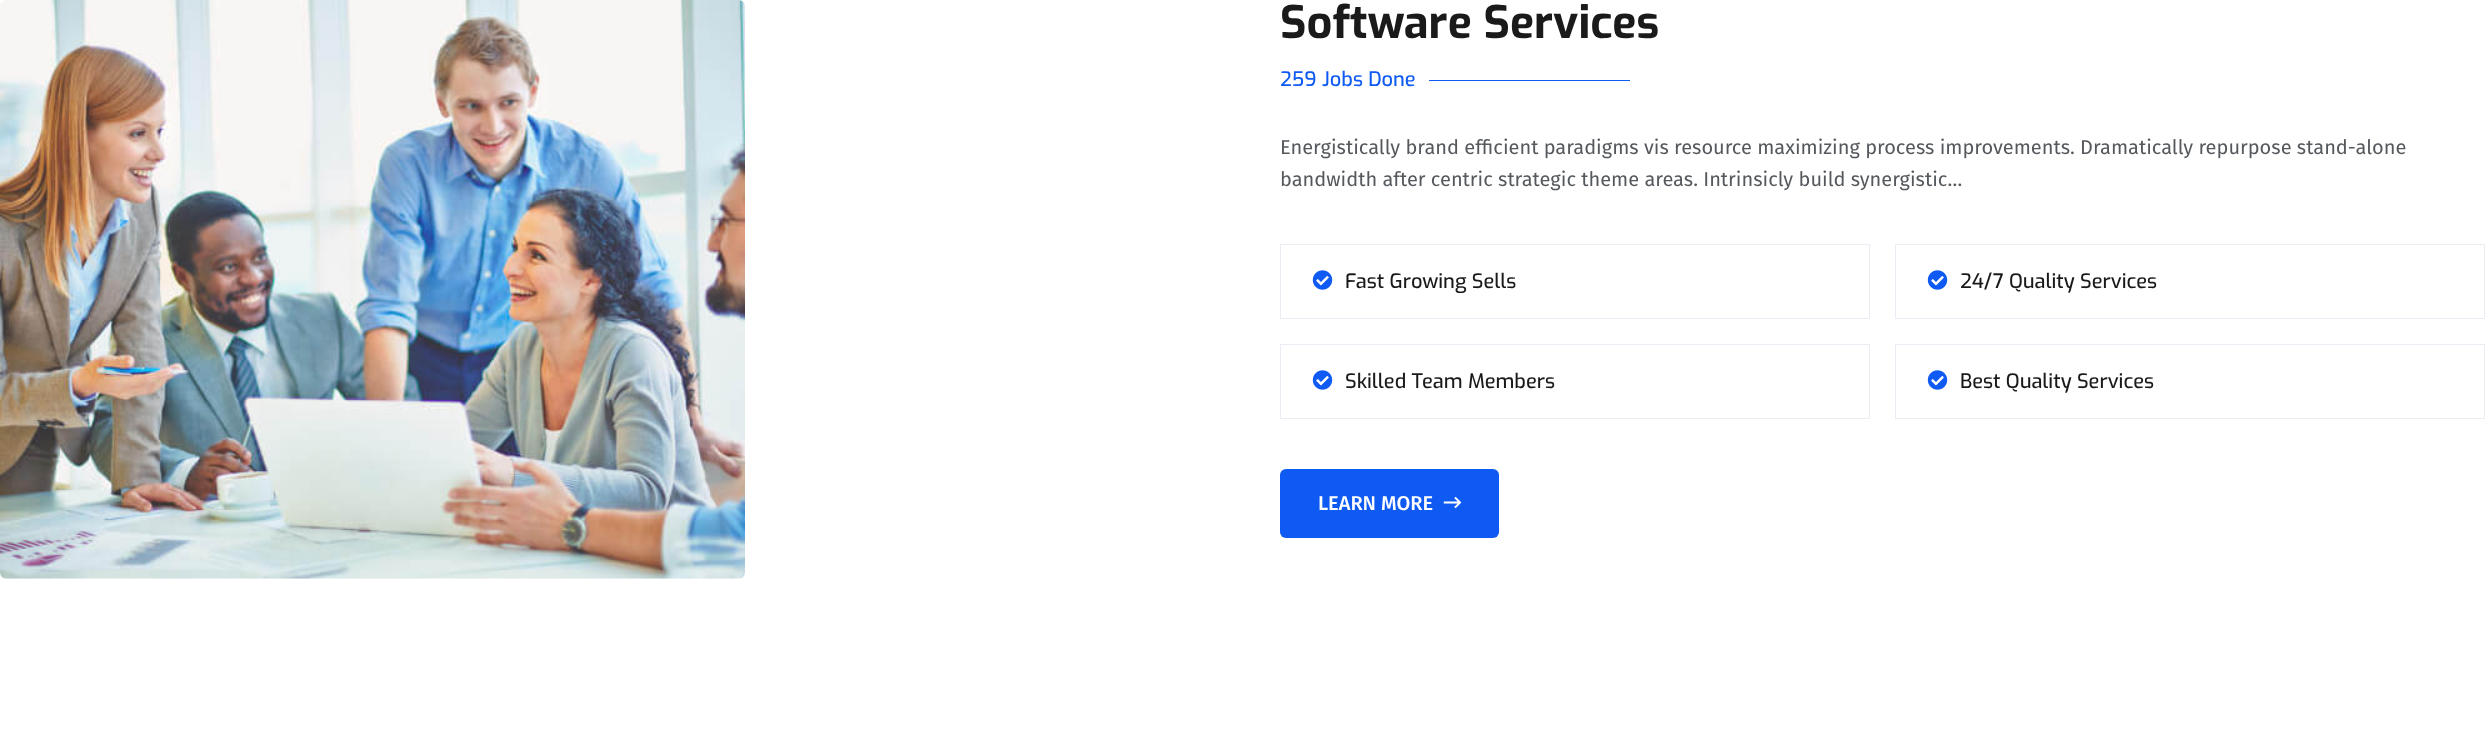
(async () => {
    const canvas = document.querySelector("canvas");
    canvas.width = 2485;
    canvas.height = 738;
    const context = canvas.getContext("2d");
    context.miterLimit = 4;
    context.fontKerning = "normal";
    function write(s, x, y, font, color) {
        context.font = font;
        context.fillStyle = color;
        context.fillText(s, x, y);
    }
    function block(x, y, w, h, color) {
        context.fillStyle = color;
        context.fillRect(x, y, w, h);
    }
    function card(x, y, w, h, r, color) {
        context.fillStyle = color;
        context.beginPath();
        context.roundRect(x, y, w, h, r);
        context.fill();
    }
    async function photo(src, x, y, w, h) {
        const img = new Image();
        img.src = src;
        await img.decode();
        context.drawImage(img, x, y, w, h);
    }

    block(0, 0, 2485, 738, "rgb(255, 255, 255)");
    await photo("media/1.png", 0, 0, 745, 579);
    write("Software Services", 1280, 38, "bold 45px Exo", "rgb(26, 26, 26)");
    write("259 Jobs Done", 1280, 86, "500 20px Exo", "rgb(14, 90, 242)");
    block(1429, 80, 201, 1, "rgb(14, 90, 242)");
    write("Energistically brand efficient paradigms vis resource maximizing process improvements. Dramatically repurpose stand-alone", 1280, 154, "20px Fira Sans", "rgb(85, 89, 93)");
    write("bandwidth after centric strategic theme areas. Intrinsicly build synergistic…", 1280, 186, "20px Fira Sans", "rgb(85, 89, 93)");
    context.strokeStyle = "rgb(234, 238, 244)";
    context.strokeRect(1280.5, 244.5, 589, 74);
    await photo("media/2.png", 1312, 270, 21, 20);
    write("Fast Growing Sells", 1345, 288, "500 20px Exo", "rgb(26, 26, 26)");
    context.strokeRect(1895.5, 244.5, 589, 74);
    await photo("media/2.png", 1927, 270, 21, 20);
    write("24/7 Quality Services", 1960, 288, "500 20px Exo", "rgb(26, 26, 26)");
    context.strokeRect(1280.5, 344.5, 589, 74);
    await photo("media/2.png", 1312, 370, 21, 20);
    write("Skilled Team Members", 1345, 388, "500 20px Exo", "rgb(26, 26, 26)");
    context.strokeRect(1895.5, 344.5, 589, 74);
    await photo("media/2.png", 1927, 370, 21, 20);
    write("Best Quality Services", 1960, 388, "500 20px Exo", "rgb(26, 26, 26)");
    card(1280, 469, 219, 69, 6, "rgb(14, 90, 242)");
    write("LEARN MORE", 1318, 510, "500 20px Fira Sans", "rgb(255, 255, 255)");
    await photo("media/3.png", 1443, 496, 19, 13);
})();
